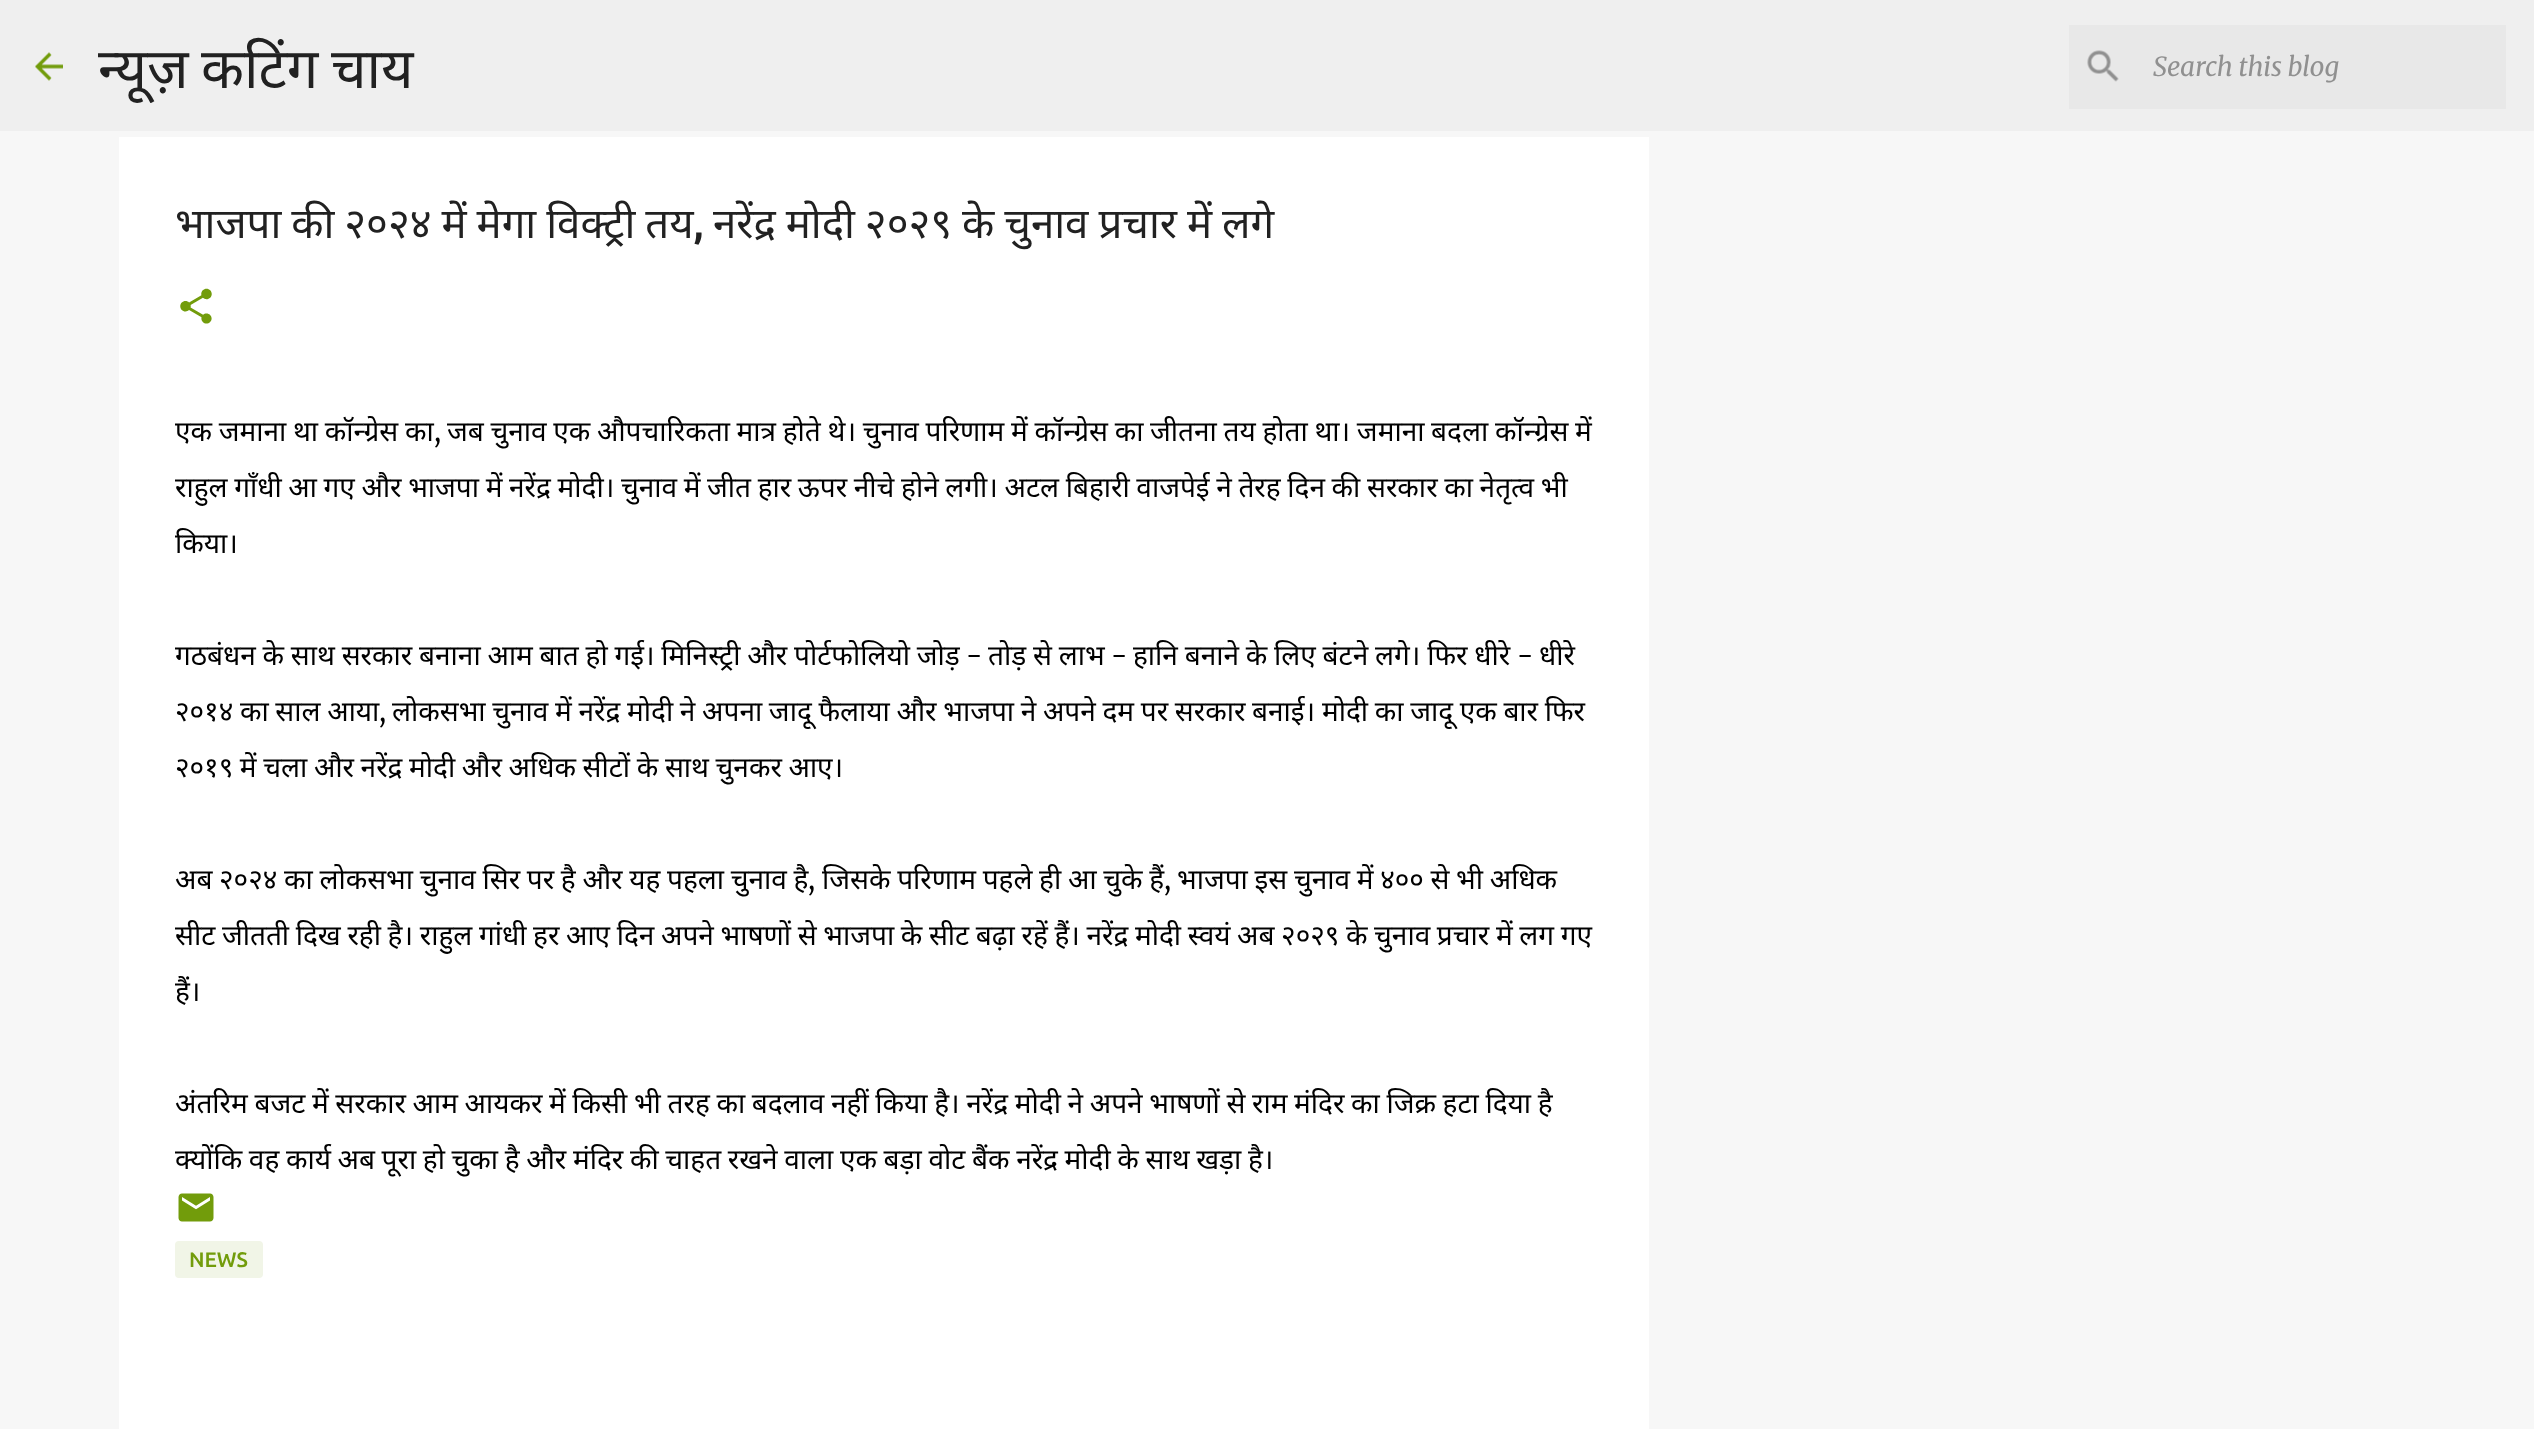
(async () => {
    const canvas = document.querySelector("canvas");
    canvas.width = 2534;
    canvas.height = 1429;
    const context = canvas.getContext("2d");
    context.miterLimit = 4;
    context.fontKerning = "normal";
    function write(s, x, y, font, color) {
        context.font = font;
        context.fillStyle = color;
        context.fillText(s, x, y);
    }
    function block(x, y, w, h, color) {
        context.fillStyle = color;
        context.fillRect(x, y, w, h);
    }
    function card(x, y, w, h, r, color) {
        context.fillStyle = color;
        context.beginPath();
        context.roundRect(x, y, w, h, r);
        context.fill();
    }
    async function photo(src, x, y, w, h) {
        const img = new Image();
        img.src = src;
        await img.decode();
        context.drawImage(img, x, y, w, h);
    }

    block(0, 0, 2534, 1429, "rgb(247, 247, 247)");
    block(0, 0, 2534, 131, "rgb(239, 239, 239)");
    await photo("media/1.png", 35, 52, 28, 29);
    context.save();
    context.beginPath();
    context.rect(98, 28, 317, 75);
    context.clip();
    context.wordSpacing = "-2px";
    write("न्यूज़ कटिंग चाय", 98, 88, "56px Noto Sans", "rgb(33, 33, 33)");
    context.restore();
    block(2069, 25, 437, 84, "rgb(232, 232, 232)");
    await photo("media/2.png", 2087, 50, 32, 32);
    write("Search this blog", 2153, 76, "italic 26.25px Merriweather", "rgb(144, 144, 144)");
    block(119, 137, 1530, 1292, "rgb(255, 255, 255)");
    context.wordSpacing = "-1px";
    write("भाजपा की २०२४ में मेगा विक्ट्री तय", 175, 238, "42px Noto Sans", "rgb(33, 33, 33)");
    context.wordSpacing = "0px";
    write(",", 693, 238, "500 42px Ubuntu", "rgb(33, 33, 33)");
    context.wordSpacing = "-1px";
    write("नरेंद्र मोदी २०२९ के चुनाव प्रचार में लगे", 713, 238, "42px Noto Sans", "rgb(33, 33, 33)");
    await photo("media/3.png", 180, 288, 32, 36);
    context.wordSpacing = "-0.6px";
    write("एक जमाना था कॉन्ग्रेस का", 175, 441, "28px Noto Sans", "rgb(0, 0, 0)");
    context.wordSpacing = "0px";
    write(",", 434, 441, "300 28px Merriweather", "rgb(0, 0, 0)");
    context.wordSpacing = "-0.6px";
    write("जब चुनाव एक औपचारिकता मात्र होते थे। चुनाव परिणाम में कॉन्ग्रेस का जीतना तय होता था। जमाना बदला कॉन्ग्रेस में", 447, 441, "28px Noto Sans", "rgb(0, 0, 0)");
    context.wordSpacing = "-0.65px";
    write("राहुल गाँधी आ गए और भाजपा में नरेंद्र मोदी। चुनाव में जीत हार ऊपर नीचे होने लगी। अटल बिहारी वाजपेई ने तेरह दिन की सरकार का नेतृत्व भी", 175, 497, "28px Noto Sans", "rgb(0, 0, 0)");
    context.wordSpacing = "0px";
    write("किया।", 175, 553, "28px Noto Sans", "rgb(0, 0, 0)");
    context.wordSpacing = "-0.5px";
    write("गठबंधन के साथ सरकार बनाना आम बात हो गई। मिनिस्ट्री और पोर्टफोलियो जोड़", 175, 665, "28px Noto Sans", "rgb(0, 0, 0)");
    context.wordSpacing = "0px";
    write("-", 966, 665, "300 28px Merriweather", "rgb(0, 0, 0)");
    context.wordSpacing = "-0.5px";
    write("तोड़ से लाभ", 988, 665, "28px Noto Sans", "rgb(0, 0, 0)");
    context.wordSpacing = "0px";
    write("-", 1111, 665, "300 28px Merriweather", "rgb(0, 0, 0)");
    context.wordSpacing = "-0.5px";
    write("हानि बनाने के लिए बंटने लगे। फिर धीरे", 1133, 665, "28px Noto Sans", "rgb(0, 0, 0)");
    context.wordSpacing = "0px";
    write("-", 1517, 665, "300 28px Merriweather", "rgb(0, 0, 0)");
    write("धीरे", 1539, 665, "28px Noto Sans", "rgb(0, 0, 0)");
    context.wordSpacing = "-0.6px";
    write("२०१४ का साल आया", 175, 721, "28px Noto Sans", "rgb(0, 0, 0)");
    context.wordSpacing = "0px";
    write(",", 379, 721, "300 28px Merriweather", "rgb(0, 0, 0)");
    context.wordSpacing = "-0.6px";
    write("लोकसभा चुनाव में नरेंद्र मोदी ने अपना जादू फैलाया और भाजपा ने अपने दम पर सरकार बनाई। मोदी का जादू एक बार फिर", 392, 721, "28px Noto Sans", "rgb(0, 0, 0)");
    context.wordSpacing = "-0.65px";
    write("२०१९ में चला और नरेंद्र मोदी और अधिक सीटों के साथ चुनकर आए।", 175, 777, "28px Noto Sans", "rgb(0, 0, 0)");
    context.wordSpacing = "-0.6px";
    write("अब २०२४ का लोकसभा चुनाव सिर पर है और यह पहला चुनाव है", 175, 889, "28px Noto Sans", "rgb(0, 0, 0)");
    context.wordSpacing = "0px";
    write(",", 808, 889, "300 28px Merriweather", "rgb(0, 0, 0)");
    context.wordSpacing = "-0.6px";
    write("जिसके परिणाम पहले ही आ चुके हैं", 822, 889, "28px Noto Sans", "rgb(0, 0, 0)");
    context.wordSpacing = "0px";
    write(",", 1164, 889, "300 28px Merriweather", "rgb(0, 0, 0)");
    context.wordSpacing = "-0.6px";
    write("भाजपा इस चुनाव में ४०० से भी अधिक", 1177, 889, "28px Noto Sans", "rgb(0, 0, 0)");
    context.wordSpacing = "-0.65px";
    write("सीट जीतती दिख रही है। राहुल गांधी हर आए दिन अपने भाषणों से भाजपा के सीट बढ़ा रहें हैं। नरेंद्र मोदी स्वयं अब २०२९ के चुनाव प्रचार में लग गए", 175, 945, "28px Noto Sans", "rgb(0, 0, 0)");
    context.wordSpacing = "0px";
    write("हैं।", 175, 1001, "28px Noto Sans", "rgb(0, 0, 0)");
    context.wordSpacing = "-0.65px";
    write("अंतरिम बजट में सरकार आम आयकर में किसी भी तरह का बदलाव नहीं किया है। नरेंद्र मोदी ने अपने भाषणों से राम मंदिर का जिक्र हटा दिया है", 175, 1113, "28px Noto Sans", "rgb(0, 0, 0)");
    write("क्योंकि वह कार्य अब पूरा हो चुका है और मंदिर की चाहत रखने वाला एक बड़ा वोट बैंक नरेंद्र मोदी के साथ खड़ा है।", 175, 1169, "28px Noto Sans", "rgb(0, 0, 0)");
    await photo("media/4.png", 178, 1193, 36, 29);
    card(175, 1241, 88, 37, 4, "rgb(241, 245, 231)");
    context.wordSpacing = "0px";
    write("NEWS", 189, 1267, "500 21px Ubuntu", "rgb(114, 156, 11)");
})();
